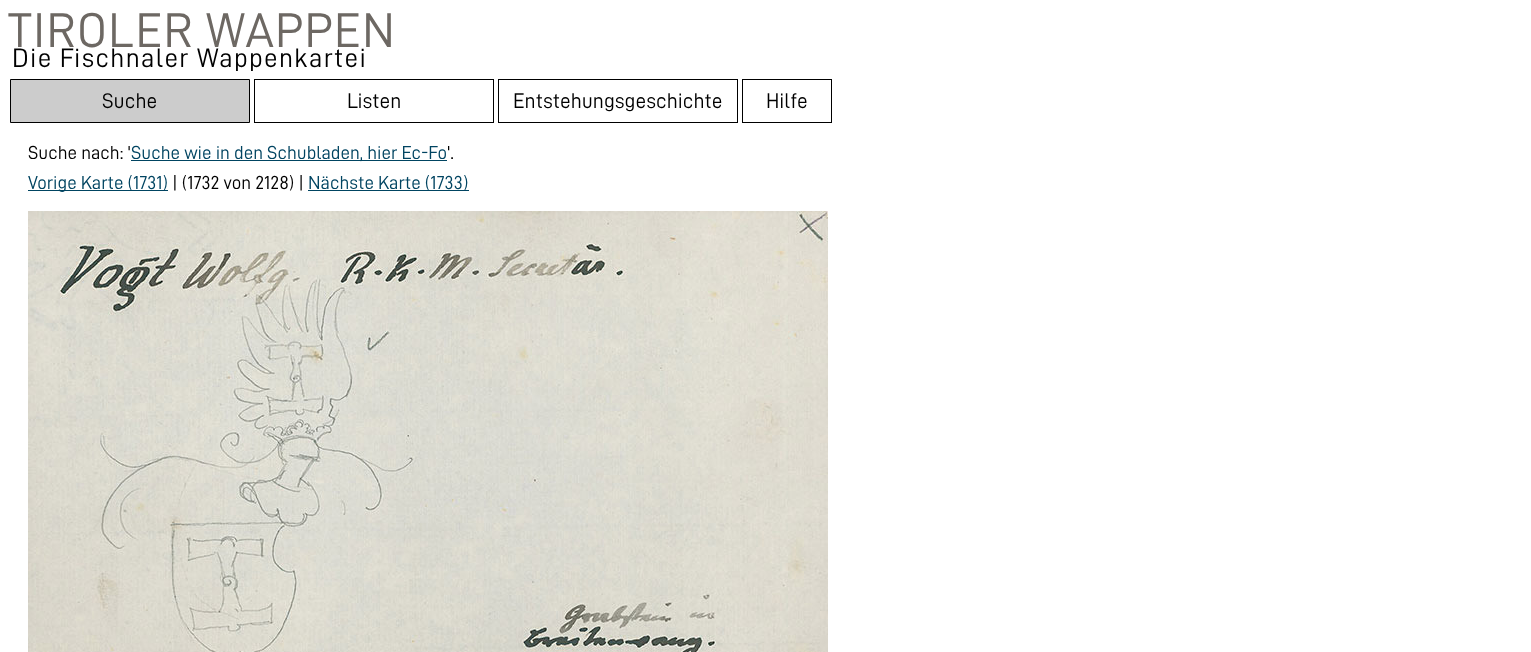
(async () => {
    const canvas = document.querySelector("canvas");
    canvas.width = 1531;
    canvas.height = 652;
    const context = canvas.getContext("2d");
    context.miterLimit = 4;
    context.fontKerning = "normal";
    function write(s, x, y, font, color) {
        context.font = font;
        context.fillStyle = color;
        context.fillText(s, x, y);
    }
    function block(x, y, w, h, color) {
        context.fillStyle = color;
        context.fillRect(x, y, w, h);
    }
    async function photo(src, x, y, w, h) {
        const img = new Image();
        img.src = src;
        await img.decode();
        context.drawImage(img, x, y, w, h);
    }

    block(0, 0, 1531, 652, "rgb(255, 255, 255)");
    context.letterSpacing = "1.3px";
    write("TIROLER WAPPEN", 8, 47, "49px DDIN", "rgb(109, 104, 99)");
    write("Die Fischnaler Wappenkartei", 12, 67, "27px DDIN", "rgb(0, 0, 0)");
    context.fillStyle = "rgb(204, 204, 204)";
    context.beginPath();
    context.rect(10.5, 79.5, 239, 43);
    context.fill();
    context.strokeStyle = "rgb(0, 0, 0)";
    context.stroke();
    context.letterSpacing = "0px";
    write("Suche", 102, 108, "21.25px DDIN", "rgb(0, 0, 0)");
    context.strokeRect(254.5, 79.5, 239, 43);
    write("Listen", 347, 108, "21.25px DDIN", "rgb(0, 0, 0)");
    context.strokeRect(498.5, 79.5, 239, 43);
    write("Entstehungsgeschichte", 513, 108, "21.25px DDIN", "rgb(0, 0, 0)");
    context.strokeRect(742.5, 79.5, 89, 43);
    write("Hilfe", 766, 108, "21.25px DDIN", "rgb(0, 0, 0)");
    write("Suche nach: '", 28, 159, "18.9px DDIN", "rgb(0, 0, 0)");
    block(131, 160, 316, 1, "rgb(0, 68, 97)");
    write("Suche wie in den Schubladen, hier Ec-Fo", 131, 159, "18.9px DDIN", "rgb(0, 68, 97)");
    write("'.", 447, 159, "18.9px DDIN", "rgb(0, 0, 0)");
    block(28, 190, 140, 1, "rgb(0, 68, 97)");
    write("Vorige Karte (1731)", 28, 189, "18.9px DDIN", "rgb(0, 68, 97)");
    write("| (1732 von 2128) |", 172, 189, "18.9px DDIN", "rgb(0, 0, 0)");
    block(308, 190, 161, 1, "rgb(0, 68, 97)");
    write("Nächste Karte (1733)", 308, 189, "18.9px DDIN", "rgb(0, 68, 97)");
    await photo("media/1.png", 28, 211, 800, 441);
})();
